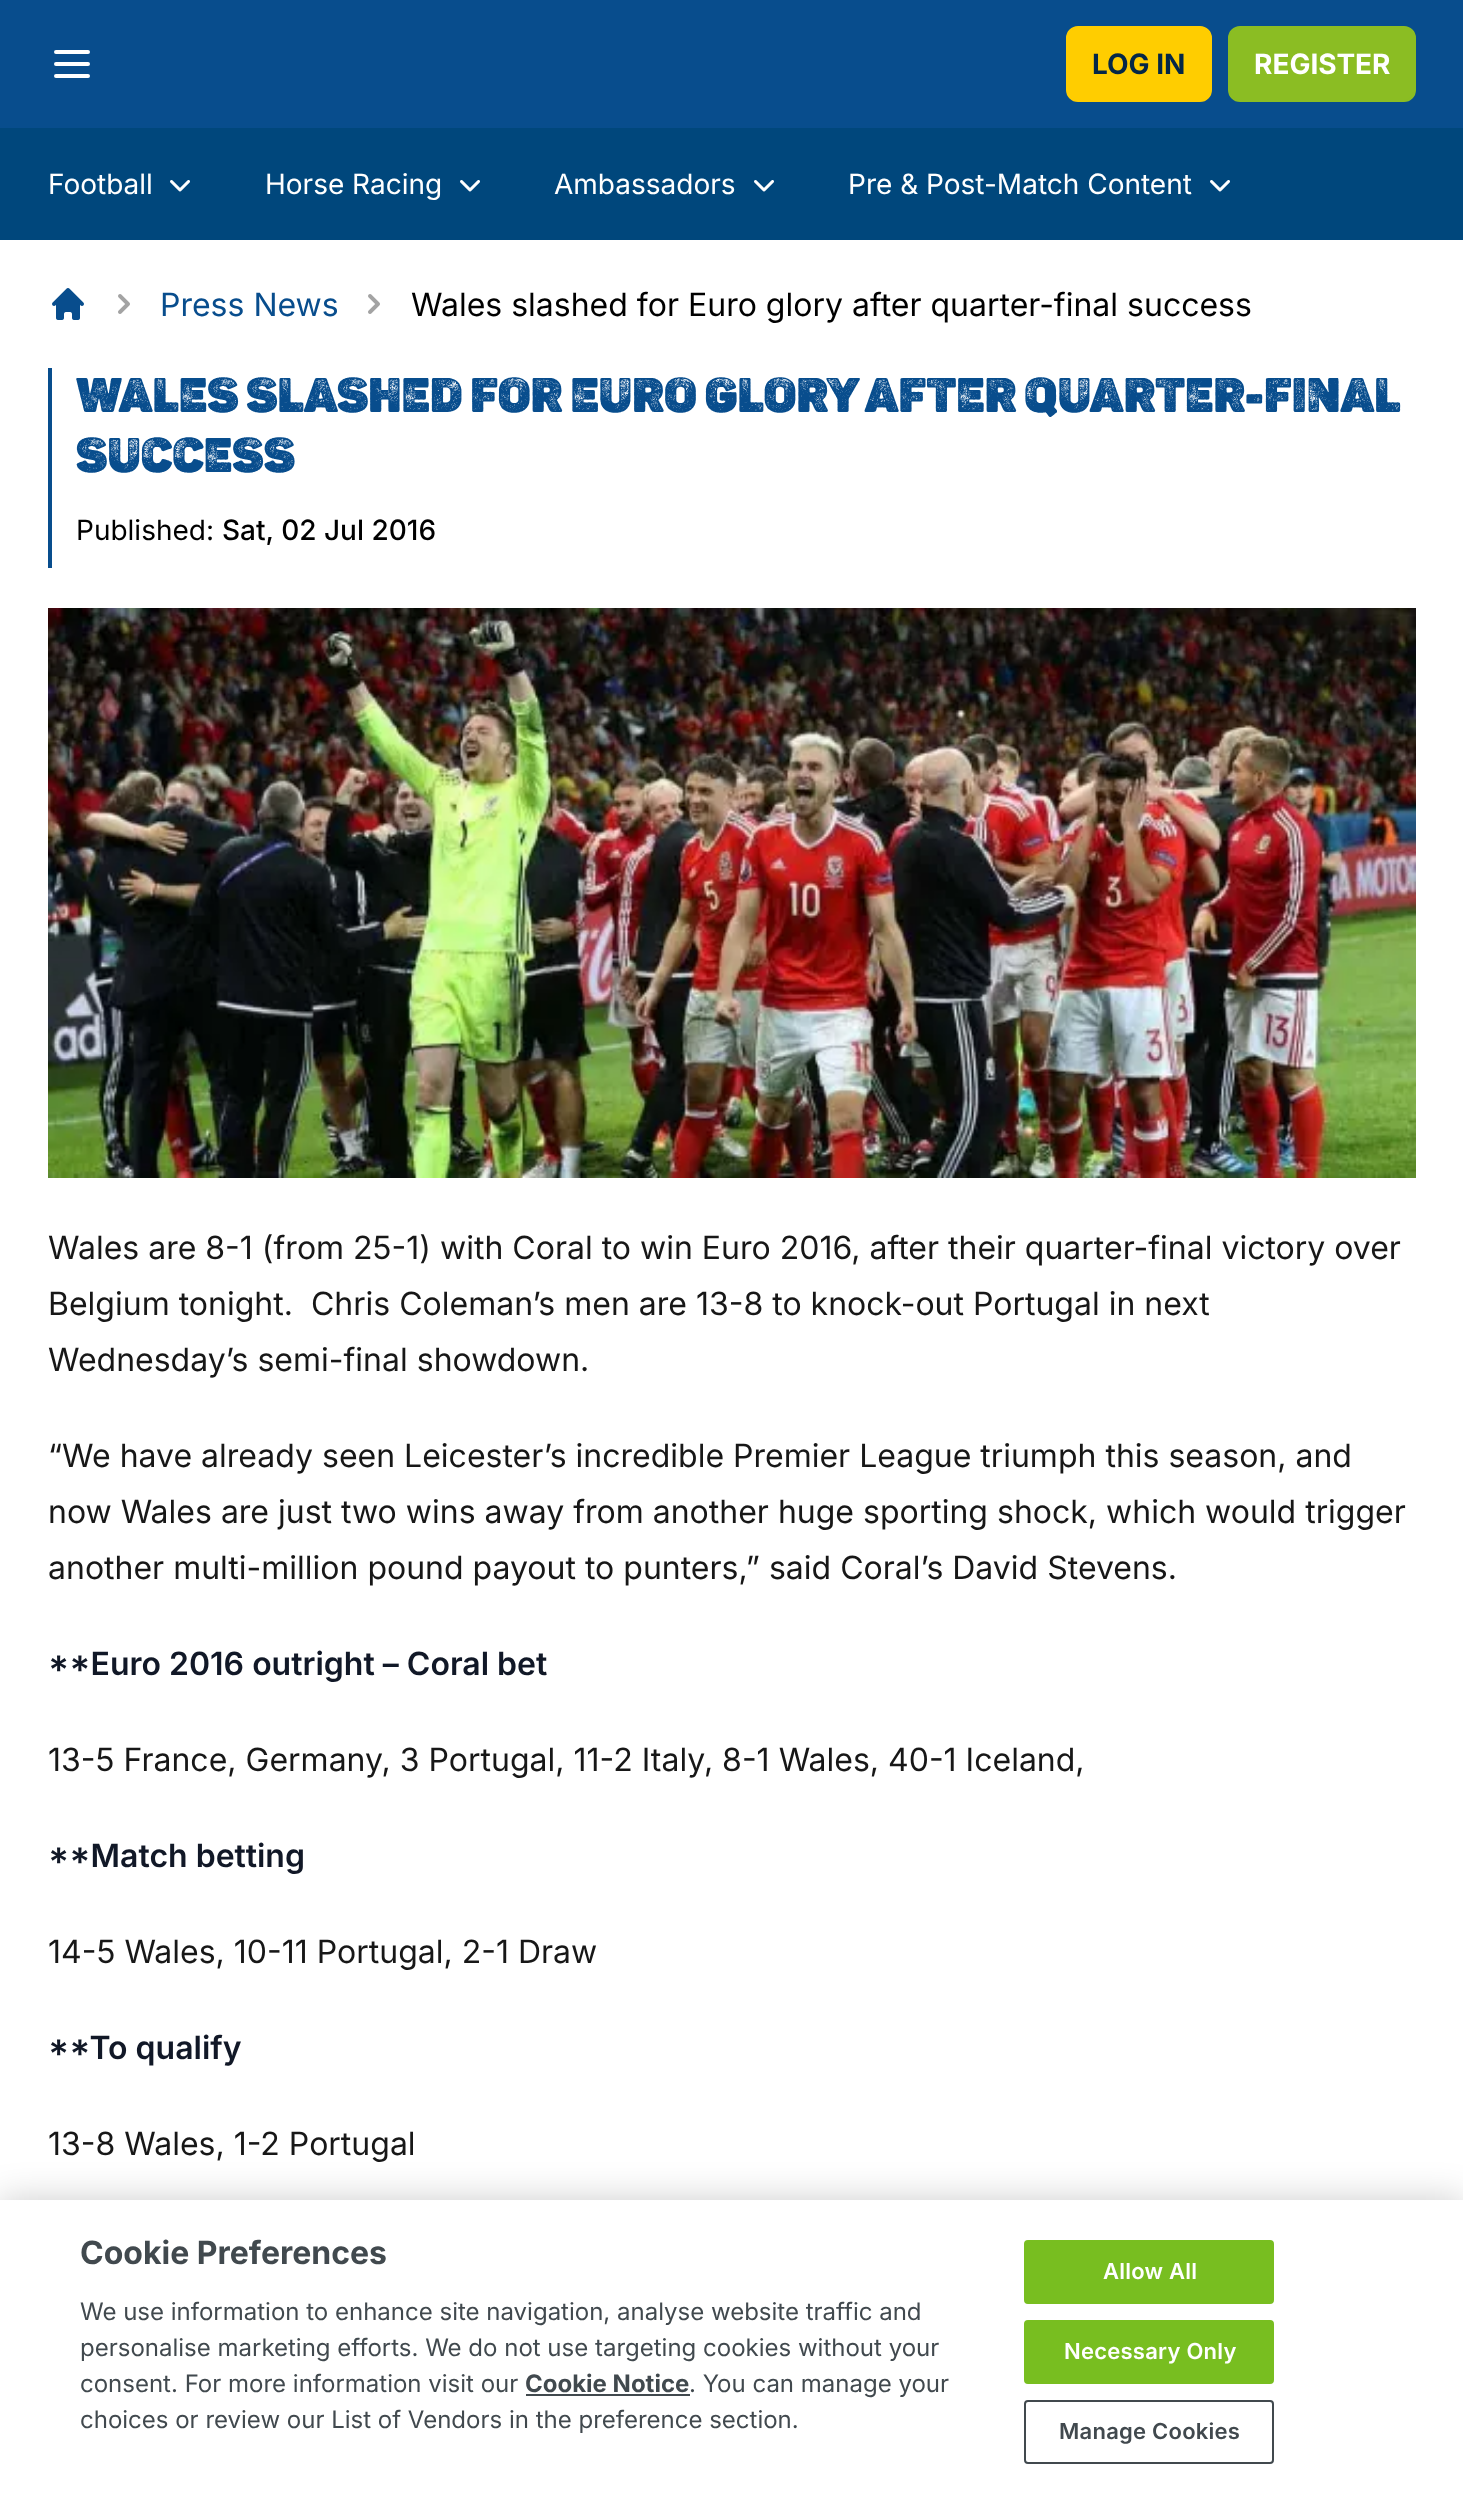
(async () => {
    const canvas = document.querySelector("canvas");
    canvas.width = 1463;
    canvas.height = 2511;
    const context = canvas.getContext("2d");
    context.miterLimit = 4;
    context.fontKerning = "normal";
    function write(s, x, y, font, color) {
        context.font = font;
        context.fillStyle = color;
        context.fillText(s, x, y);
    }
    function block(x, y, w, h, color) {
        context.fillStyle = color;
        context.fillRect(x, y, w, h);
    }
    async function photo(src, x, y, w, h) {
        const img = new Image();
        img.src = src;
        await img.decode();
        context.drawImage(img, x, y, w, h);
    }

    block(0, 0, 1463, 2511, "rgb(255, 255, 255)");
    block(0, 0, 1463, 128, "rgb(8, 77, 141)");
    context.beginPath();
    context.moveTo(56, 52);
    context.lineTo(88, 52);
    context.moveTo(56, 64);
    context.lineTo(88, 64);
    context.moveTo(56, 76);
    context.lineTo(88, 76);
    context.strokeStyle = "rgb(255, 255, 255)";
    context.lineWidth = 4;
    context.lineCap = "round";
    context.lineJoin = "round";
    context.stroke();
    context.fillStyle = "rgb(255, 205, 0)";
    context.beginPath();
    context.roundRect(1067, 27, 144, 74, 11);
    context.fill();
    context.strokeStyle = "rgb(255, 205, 0)";
    context.lineWidth = 2;
    context.lineJoin = "miter";
    context.stroke();
    write("LOG IN", 1092, 74, "bold 28px Inter", "rgb(4, 39, 71)");
    context.fillStyle = "rgb(139, 189, 35)";
    context.beginPath();
    context.roundRect(1229, 27, 186, 74, 11);
    context.fill();
    context.strokeStyle = "rgb(139, 189, 35)";
    context.stroke();
    write("REGISTER", 1254, 74, "bold 28px Inter", "rgb(255, 255, 255)");
    block(0, 128, 1463, 112, "rgb(0, 71, 124)");
    write("Football", 48, 194, "28px Inter", "rgb(255, 255, 255)");
    await photo("media/1.png", 170, 180, 20, 12);
    write("Horse Racing", 265, 194, "28px Inter", "rgb(255, 255, 255)");
    await photo("media/1.png", 460, 180, 20, 12);
    write("Ambassadors", 554, 194, "28px Inter", "rgb(255, 255, 255)");
    await photo("media/1.png", 754, 180, 20, 12);
    write("Pre & Post-Match Content", 848, 194, "28px Inter", "rgb(255, 255, 255)");
    await photo("media/1.png", 1210, 180, 20, 12);
    await photo("media/2.png", 52, 288, 32, 32);
    await photo("media/3.png", 118, 294, 12, 20);
    write("Press News", 160, 316, "32px Inter", "rgb(8, 77, 141)");
    await photo("media/3.png", 368, 294, 12, 20);
    write("Wales slashed for Euro glory after quarter-final success", 411, 316, "32px Inter", "rgb(0, 0, 0)");
    block(48, 368, 4, 200, "rgb(8, 77, 141)");
    write("Wales slashed for Euro glory after quarter-final", 76, 412, "900 48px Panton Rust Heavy", "rgb(8, 77, 141)");
    write("success", 76, 472, "900 48px Panton Rust Heavy", "rgb(8, 77, 141)");
    write("Published:", 76, 540, "28px Inter", "rgb(0, 0, 0)");
    write("Sat, 02 Jul 2016", 222, 540, "500 28px Inter", "rgb(0, 0, 0)");
    await photo("media/4.png", 48, 608, 1368, 570);
    write("Wales are 8-1 (from 25-1) with Coral to win Euro 2016, after their quarter-final victory over", 48, 1259, "32px Inter", "rgb(23, 23, 23)");
    write("Belgium tonight.  Chris Coleman’s men are 13-8 to knock-out Portugal in next", 48, 1315, "32px Inter", "rgb(23, 23, 23)");
    write("Wednesday’s semi-final showdown.", 48, 1371, "32px Inter", "rgb(23, 23, 23)");
    write("“We have already seen Leicester’s incredible Premier League triumph this season, and", 48, 1467, "32px Inter", "rgb(23, 23, 23)");
    write("now Wales are just two wins away from another huge sporting shock, which would trigger", 48, 1523, "32px Inter", "rgb(23, 23, 23)");
    write("another multi-million pound payout to punters,” said Coral’s David Stevens.", 48, 1579, "32px Inter", "rgb(23, 23, 23)");
    write("**Euro 2016 outright – Coral bet", 48, 1675, "600 32px Inter", "rgb(17, 24, 39)");
    write("13-5 France, Germany, 3 Portugal, 11-2 Italy, 8-1 Wales, 40-1 Iceland,", 48, 1771, "32px Inter", "rgb(23, 23, 23)");
    write("**Match betting", 48, 1867, "600 32px Inter", "rgb(17, 24, 39)");
    write("14-5 Wales, 10-11 Portugal, 2-1 Draw", 48, 1963, "32px Inter", "rgb(23, 23, 23)");
    write("**To qualify", 48, 2059, "600 32px Inter", "rgb(17, 24, 39)");
    write("13-8 Wales, 1-2 Portugal", 48, 2155, "32px Inter", "rgb(23, 23, 23)");
    context.fillStyle = "rgba(0, 0, 0, 0.2)";
    context.filter = "blur(18px)";
    context.beginPath();
    context.rect(0, 2200, 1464, 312);
    context.fill();
    context.filter = "none";
    block(0, 2200, 1463, 311, "rgb(255, 255, 255)");
    write("Cookie Preferences", 80, 2264, "bold 32px Inter", "rgb(65, 73, 78)");
    write("We use information to enhance site navigation, analyse website traffic and", 80, 2320, "24px Inter", "rgb(65, 73, 78)");
    write("personalise marketing efforts. We do not use targeting cookies without your", 80, 2356, "24px Inter", "rgb(65, 73, 78)");
    write("consent. For more information visit our", 80, 2392, "24px Inter", "rgb(65, 73, 78)");
    write("Cookie Notice", 525, 2392, "bold 24px Inter", "rgb(65, 73, 78)");
    block(526, 2394, 164, 2, "rgb(65, 73, 78)");
    write(". You can manage your", 689, 2392, "24px Inter", "rgb(65, 73, 78)");
    write("choices or review our List of Vendors in the preference section.", 80, 2428, "24px Inter", "rgb(65, 73, 78)");
    context.fillStyle = "rgb(120, 190, 32)";
    context.beginPath();
    context.roundRect(1025, 2241, 248, 62, 3);
    context.fill();
    context.strokeStyle = "rgb(120, 190, 32)";
    context.stroke();
    context.letterSpacing = "0.25px";
    write("Allow All", 1103, 2279, "600 22px Inter", "rgb(255, 255, 255)");
    context.fillStyle = "rgb(120, 190, 32)";
    context.beginPath();
    context.roundRect(1025, 2321, 248, 62, 3);
    context.fill();
    context.stroke();
    write("Necessary Only", 1064, 2359, "600 22px Inter", "rgb(255, 255, 255)");
    context.beginPath();
    context.roundRect(1025, 2401, 248, 62, 3);
    context.strokeStyle = "rgb(65, 73, 78)";
    context.stroke();
    write("Manage Cookies", 1059, 2439, "600 22px Inter", "rgb(65, 73, 78)");
})();
